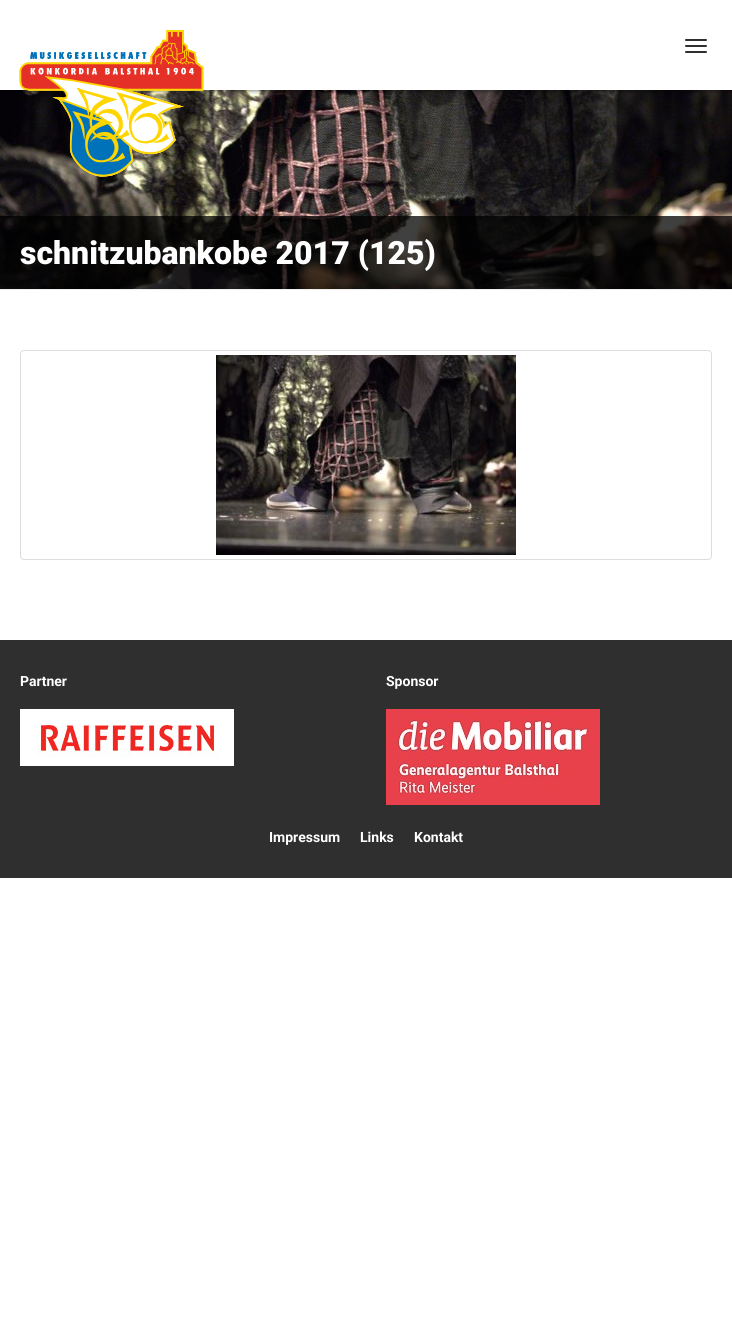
import math
import cairo



def rounded_rect(context, x, y, w, h, r):
    context.new_sub_path()
    for i, (u, v) in enumerate([(x + w - r, y + h - r), (x + r, y + h - r), (x + r, y + r), (x + w - r, y + r)]):
        context.arc(u, v, r, i * math.pi / 2, (i + 1) * math.pi / 2)
    context.close_path()


def draw_shadow(context, x, y, w, h, r, blur, alpha):
    context.push_group_with_content(cairo.Content.ALPHA)
    context.set_operator(cairo.Operator.SOURCE)
    for i in range(15, -16, -2):
        e = blur * i / 6
        if min(w, h) + 2 * e > 0:
            context.set_source_rgba(0, 0, 0, alpha * math.erfc((i - 1) / 8.5) / 2)
            rounded_rect(context, x - e, y - e, w + 2 * e, h + 2 * e, max(0, min(r + e + blur * .6, min(w, h) / 2 + e)))
            context.fill()
    context.mask(context.pop_group())


def draw_image(context, path, x, y, w, h):
    context.save()
    context.set_source_surface(cairo.ImageSurface.create_from_png(path), x, y)
    context.rectangle(x, y, w, h)
    context.fill()
    context.restore()


def draw(context):
    context.set_source_rgb(1, 1, 1)
    context.paint()
    draw_image(context, "images/1.png", 0, 90, 732, 199)
    context.save()
    context.rectangle(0, 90, 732, 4)
    context.clip()
    context.set_source_rgb(0, 0, 0)
    draw_shadow(context, -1, -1, 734, 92, 0, 2, 0.5)
    context.restore()
    draw_image(context, "images/2.png", 19, 30, 185, 147)
    context.set_source_rgb(47 / 255, 47 / 255, 47 / 255)
    rounded_rect(context, 685, 39, 22, 2, 1)
    context.fill()
    rounded_rect(context, 685, 45, 22, 2, 1)
    context.fill()
    rounded_rect(context, 685, 51, 22, 2, 1)
    context.fill()
    context.set_source_rgb(238 / 255, 238 / 255, 238 / 255)
    context.rectangle(0, 289, 732, 1)
    context.fill()
    context.set_source_rgba(0, 0, 0, 0.75)
    context.rectangle(0, 216, 732, 73)
    context.fill()
    rounded_rect(context, 20.5, 350.5, 691, 209, 3.5)
    context.set_source_rgb(221 / 255, 221 / 255, 221 / 255)
    context.set_line_width(1)
    context.stroke()
    draw_image(context, "images/3.png", 216, 355, 300, 200)
    context.set_source_rgb(47 / 255, 47 / 255, 47 / 255)
    context.rectangle(0, 640, 732, 238)
    context.fill()
    draw_image(context, "images/4.png", 20, 709, 214, 57)
    draw_image(context, "images/5.png", 386, 709, 214, 96)
    context.select_font_face("Roboto Black")
    context.set_font_size(32)
    context.set_source_rgb(1, 1, 1)
    context.move_to(20, 264)
    context.show_text("schnitzubankobe 2017 (125)")
    context.select_font_face("Roboto", cairo.FontSlant.NORMAL, cairo.FontWeight.BOLD)
    context.set_font_size(14)
    context.move_to(20, 686)
    context.show_text("Partner")
    context.move_to(386, 686)
    context.show_text("Sponsor")
    context.move_to(269, 842)
    context.show_text("Impressum")
    context.move_to(360, 842)
    context.show_text("Links")
    context.move_to(414, 842)
    context.show_text("Kontakt")


surface = cairo.ImageSurface(cairo.Format.RGB24, 732, 1340)
context = cairo.Context(surface)
options = cairo.FontOptions()
options.set_hint_metrics(cairo.HintMetrics.OFF)
options.set_hint_style(cairo.HintStyle.NONE)
context.set_font_options(options)
context.set_miter_limit(4)
draw(context)
surface.write_to_png("out.png")
